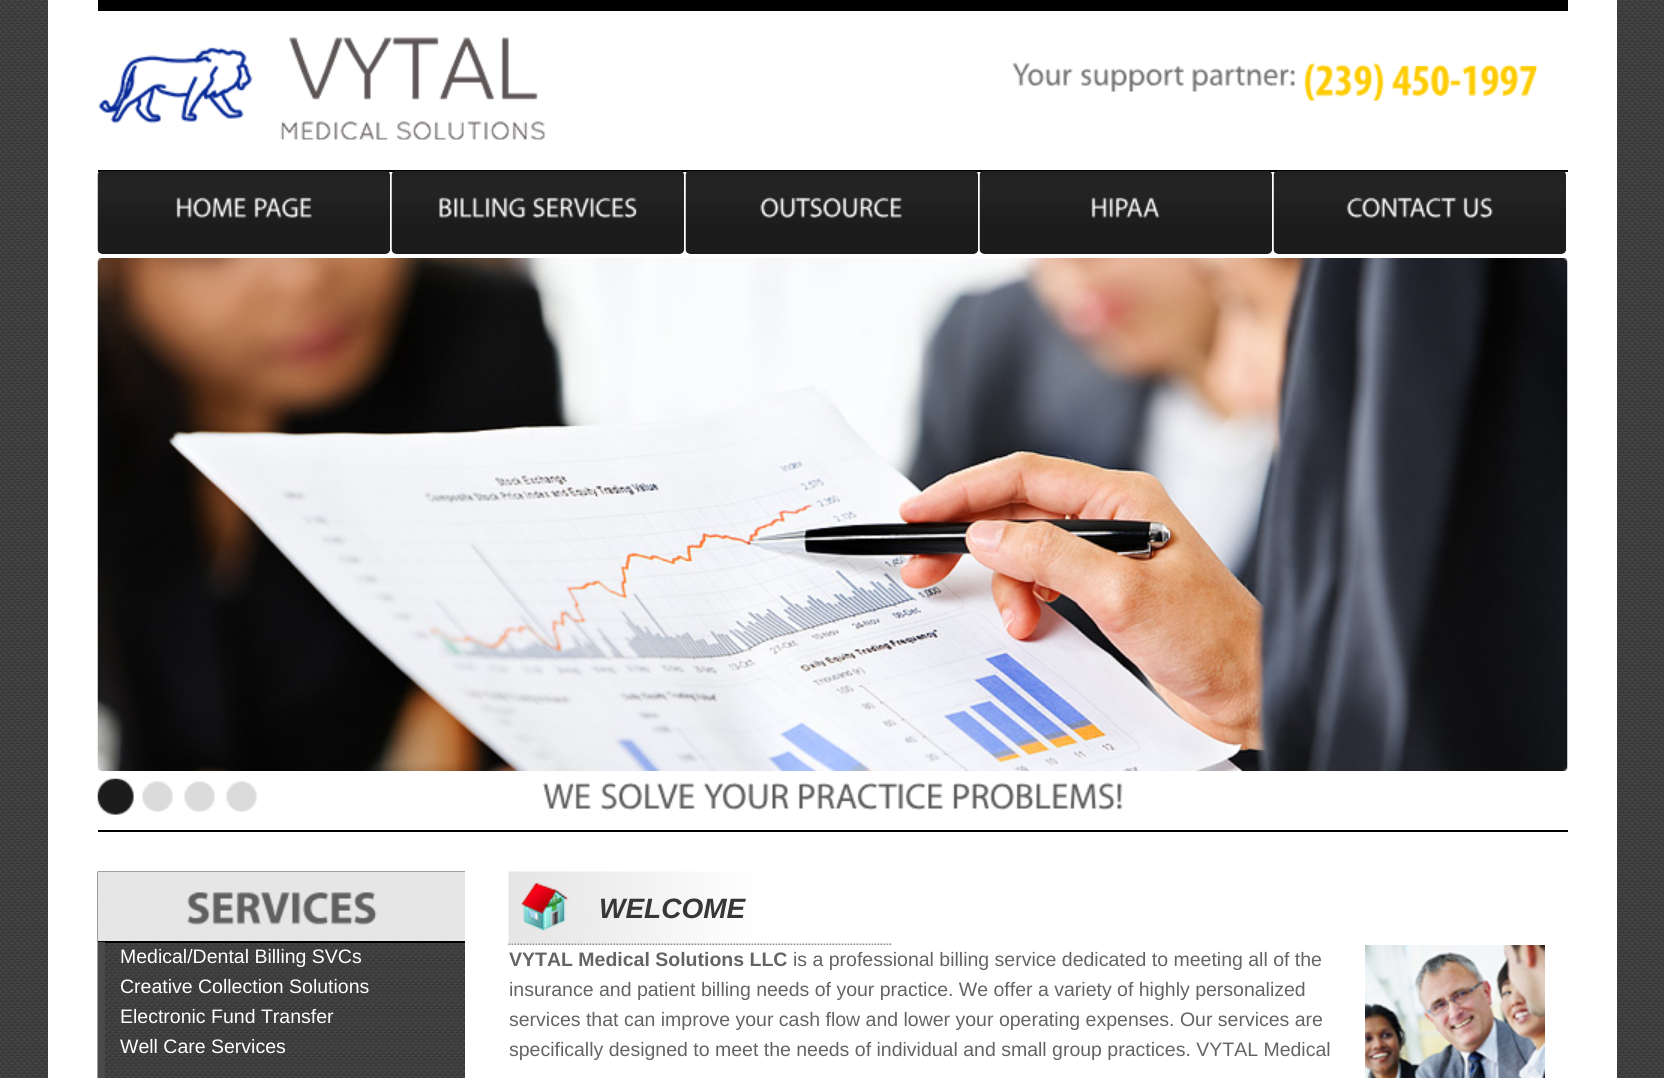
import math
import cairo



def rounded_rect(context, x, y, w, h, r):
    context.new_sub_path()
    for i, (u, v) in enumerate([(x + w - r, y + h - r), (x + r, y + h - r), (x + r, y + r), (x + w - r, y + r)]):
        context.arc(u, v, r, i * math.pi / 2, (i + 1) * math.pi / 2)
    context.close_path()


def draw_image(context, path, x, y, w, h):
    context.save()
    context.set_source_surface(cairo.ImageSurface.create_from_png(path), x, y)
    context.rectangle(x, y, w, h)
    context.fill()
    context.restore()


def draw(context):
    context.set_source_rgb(1, 1, 1)
    context.paint()
    draw_image(context, "images/1.png", 0, 0, 1664, 1078)
    context.set_source_rgb(1, 1, 1)
    context.rectangle(48, 0, 1569, 1078)
    context.fill()
    context.set_source_rgb(0, 0, 0)
    context.rectangle(98, 0, 1470, 11)
    context.fill()
    draw_image(context, "images/2.png", 98, 37, 447, 103)
    draw_image(context, "images/3.png", 1012, 62, 61, 24)
    draw_image(context, "images/4.png", 1081, 65, 103, 27)
    draw_image(context, "images/5.png", 1192, 65, 103, 27)
    draw_image(context, "images/6.png", 1304, 62, 80, 39)
    draw_image(context, "images/7.png", 1391, 64, 147, 33)
    context.rectangle(98, 170, 1470, 2)
    context.fill()
    context.set_source_rgb(28 / 255, 28 / 255, 28 / 255)
    rounded_rect(context, 98, 171, 292, 83, 5)
    context.fill()
    draw_image(context, "images/8.png", 97, 171, 293, 83)
    draw_image(context, "images/9.png", 176, 197, 71, 21)
    draw_image(context, "images/10.png", 254, 197, 59, 21)
    rounded_rect(context, 392, 171, 292, 83, 5)
    context.fill()
    draw_image(context, "images/11.png", 391, 171, 293, 83)
    draw_image(context, "images/12.png", 439, 197, 87, 21)
    draw_image(context, "images/13.png", 532, 197, 105, 21)
    rounded_rect(context, 686, 171, 292, 83, 5)
    context.fill()
    draw_image(context, "images/11.png", 685, 171, 293, 83)
    draw_image(context, "images/14.png", 760, 197, 142, 21)
    rounded_rect(context, 980, 171, 292, 83, 5)
    context.fill()
    draw_image(context, "images/15.png", 979, 171, 293, 83)
    draw_image(context, "images/16.png", 1091, 197, 69, 21)
    rounded_rect(context, 1274, 171, 292, 83, 5)
    context.fill()
    draw_image(context, "images/11.png", 1273, 171, 293, 83)
    draw_image(context, "images/17.png", 1346, 197, 111, 21)
    draw_image(context, "images/18.png", 1463, 197, 30, 21)
    draw_image(context, "images/19.png", 97, 258, 1471, 513)
    context.set_source_rgb(0, 0, 0)
    context.rectangle(98, 830, 1470, 2)
    context.fill()
    draw_image(context, "images/20.png", 542, 782, 50, 27)
    draw_image(context, "images/21.png", 601, 782, 94, 29)
    draw_image(context, "images/22.png", 703, 782, 87, 29)
    draw_image(context, "images/23.png", 798, 782, 146, 29)
    draw_image(context, "images/24.png", 952, 782, 171, 29)
    draw_image(context, "images/25.png", 97, 778, 37, 37)
    draw_image(context, "images/26.png", 142, 781, 31, 31)
    draw_image(context, "images/26.png", 184, 781, 31, 31)
    draw_image(context, "images/26.png", 226, 781, 31, 31)
    draw_image(context, "images/27.png", 97, 871, 368, 207)
    context.set_source_rgb(230 / 255, 230 / 255, 230 / 255)
    context.rectangle(98, 872, 367, 69)
    context.fill()
    context.set_source_rgb(0, 0, 0)
    context.rectangle(98, 941, 367, 2)
    context.fill()
    draw_image(context, "images/28.png", 187, 892, 190, 33)
    context.set_source_rgb(73 / 255, 73 / 255, 73 / 255)
    context.rectangle(98, 942, 7, 136)
    context.fill()
    draw_image(context, "images/29.png", 508, 871, 384, 74)
    draw_image(context, "images/30.png", 1365, 945, 180, 133)
    context.select_font_face("Liberation Sans")
    context.set_font_size(19.5)
    context.set_source_rgb(1, 1, 1)
    context.move_to(120, 963)
    context.show_text("Medical/Dental Billing SVCs")
    context.move_to(120, 993)
    context.show_text("Creative Collection Solutions")
    context.move_to(120, 1023)
    context.show_text("Electronic Fund Transfer")
    context.move_to(120, 1053)
    context.show_text("Well Care Services")
    context.select_font_face("Liberation Sans", cairo.FontSlant.ITALIC, cairo.FontWeight.BOLD)
    context.set_font_size(28)
    context.set_source_rgb(55 / 255, 55 / 255, 55 / 255)
    context.move_to(599, 918)
    context.show_text("WELCOME")
    context.select_font_face("Liberation Sans", cairo.FontSlant.NORMAL, cairo.FontWeight.BOLD)
    context.set_font_size(19.5)
    context.set_source_rgb(100 / 255, 100 / 255, 100 / 255)
    context.move_to(509, 966)
    context.show_text("VYTAL Medical Solutions LLC")
    context.select_font_face("Liberation Sans")
    context.move_to(793, 966)
    context.show_text("is a professional billing service dedicated to meeting all of the")
    context.move_to(509, 996)
    context.show_text("insurance and patient billing needs of your practice. We offer a variety of highly personalized")
    context.move_to(509, 1026)
    context.show_text("services that can improve your cash flow and lower your operating expenses. Our services are")
    context.move_to(509, 1056)
    context.show_text("specifically designed to meet the needs of individual and small group practices. VYTAL Medical")


surface = cairo.ImageSurface(cairo.Format.RGB24, 1664, 1078)
context = cairo.Context(surface)
options = cairo.FontOptions()
options.set_hint_metrics(cairo.HintMetrics.OFF)
options.set_hint_style(cairo.HintStyle.NONE)
context.set_font_options(options)
context.set_miter_limit(4)
draw(context)
surface.write_to_png("out.png")
